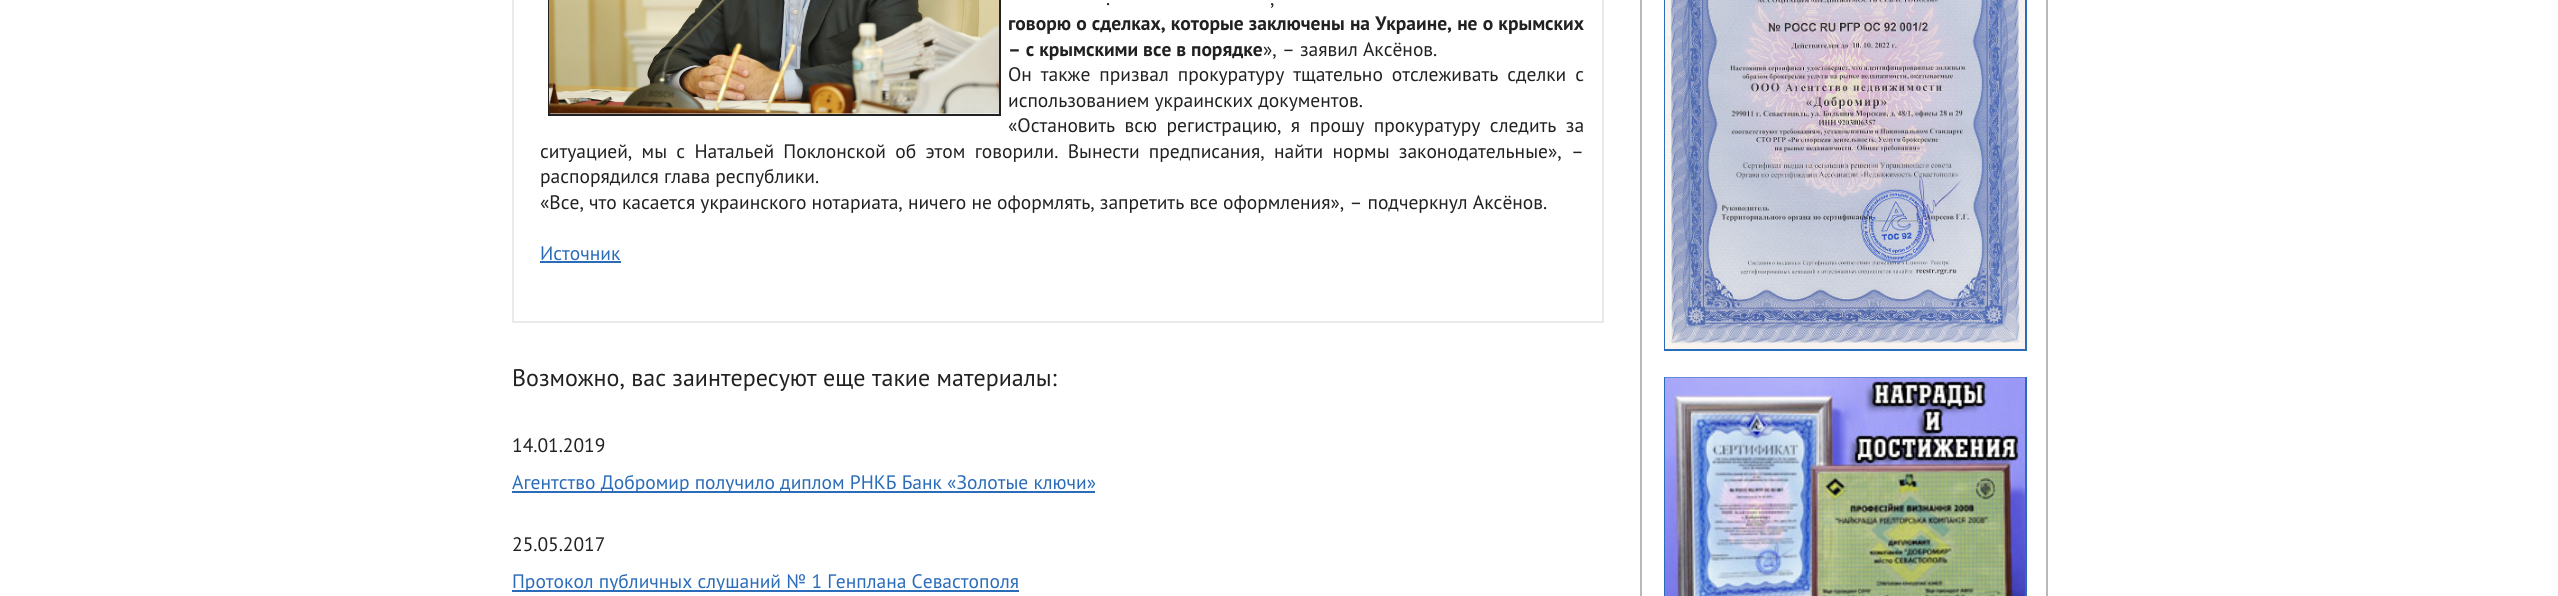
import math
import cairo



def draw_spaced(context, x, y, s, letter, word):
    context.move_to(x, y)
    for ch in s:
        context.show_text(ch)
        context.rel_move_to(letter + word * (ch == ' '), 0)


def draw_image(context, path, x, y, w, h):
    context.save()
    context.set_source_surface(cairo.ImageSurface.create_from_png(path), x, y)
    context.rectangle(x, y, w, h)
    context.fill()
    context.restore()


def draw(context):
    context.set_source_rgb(1, 1, 1)
    context.paint()
    context.rectangle(513, -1, 1090, 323)
    context.set_source_rgb(234 / 255, 234 / 255, 234 / 255)
    context.stroke()
    context.rectangle(549, -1, 451, 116)
    context.set_source_rgb(33 / 255, 33 / 255, 33 / 255)
    context.stroke()
    draw_image(context, "images/1.png", 549, 0, 450, 114)
    context.set_source_rgb(42 / 255, 108 / 255, 185 / 255)
    context.rectangle(540, 261, 81, 2)
    context.fill()
    context.rectangle(512, 491, 583, 2)
    context.fill()
    context.rectangle(512, 590, 507, 2)
    context.fill()
    context.rectangle(1641, -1, 406, 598)
    context.set_source_rgb(185 / 255, 185 / 255, 185 / 255)
    context.stroke()
    context.rectangle(1665, -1, 361, 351)
    context.set_source_rgb(42 / 255, 108 / 255, 185 / 255)
    context.stroke()
    draw_image(context, "images/2.png", 1665, 0, 360, 349)
    context.rectangle(1665, 378, 361, 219)
    context.stroke()
    draw_image(context, "images/3.png", 1665, 377, 360, 219)
    context.select_font_face("PT Sans")
    context.set_font_size(19.5)
    context.set_source_rgb(33 / 255, 33 / 255, 33 / 255)
    draw_spaced(context, 1106, 5, ".", 0, 4)
    draw_spaced(context, 1270, 5, ",", 0, 4)
    context.select_font_face("PT Sans", cairo.FontSlant.NORMAL, cairo.FontWeight.BOLD)
    draw_spaced(context, 1008, 30, "говорю о сделках, которые заключены на Украине, не о крымских", 0, 0.25)
    context.move_to(1008, 56)
    context.show_text("– с крымскими все в порядке")
    context.select_font_face("PT Sans")
    context.move_to(1263, 56)
    context.show_text("», – заявил Аксёнов.")
    draw_spaced(context, 1008, 81, "Он также призвал прокуратуру тщательно отслеживать сделки с", 0, 3.75)
    context.move_to(1008, 107)
    context.show_text("использованием украинских документов.")
    draw_spaced(context, 1008, 132, "«Остановить всю регистрацию, я прошу прокуратуру следить за", 0, 4.25)
    draw_spaced(context, 540, 158, "ситуацией, мы с Натальей Поклонской об этом говорили. Вынести предписания, найти нормы законодательные», –", 0, 4.1)
    context.move_to(540, 183)
    context.show_text("распорядился глава республики.")
    context.move_to(540, 209)
    context.show_text("«Все, что касается украинского нотариата, ничего не оформлять, запретить все оформления», – подчеркнул Аксёнов.")
    context.set_source_rgb(42 / 255, 108 / 255, 185 / 255)
    context.move_to(540, 260)
    context.show_text("Источник")
    context.set_font_size(24)
    context.set_source_rgb(33 / 255, 33 / 255, 33 / 255)
    context.move_to(512, 386)
    context.show_text("Возможно, вас заинтересуют еще такие материалы:")
    context.set_font_size(19.5)
    context.move_to(512, 452)
    context.show_text("14.01.2019")
    context.set_source_rgb(42 / 255, 108 / 255, 185 / 255)
    context.move_to(512, 489)
    context.show_text("Агентство Добромир получило диплом РНКБ Банк «Золотые ключи»")
    context.set_source_rgb(33 / 255, 33 / 255, 33 / 255)
    context.move_to(512, 551)
    context.show_text("25.05.2017")
    context.set_source_rgb(42 / 255, 108 / 255, 185 / 255)
    context.move_to(512, 588)
    context.show_text("Протокол публичных слушаний № 1 Генплана Севастополя")


surface = cairo.ImageSurface(cairo.Format.RGB24, 2558, 596)
context = cairo.Context(surface)
options = cairo.FontOptions()
options.set_hint_metrics(cairo.HintMetrics.OFF)
options.set_hint_style(cairo.HintStyle.NONE)
context.set_font_options(options)
context.set_miter_limit(4)
draw(context)
surface.write_to_png("out.png")
